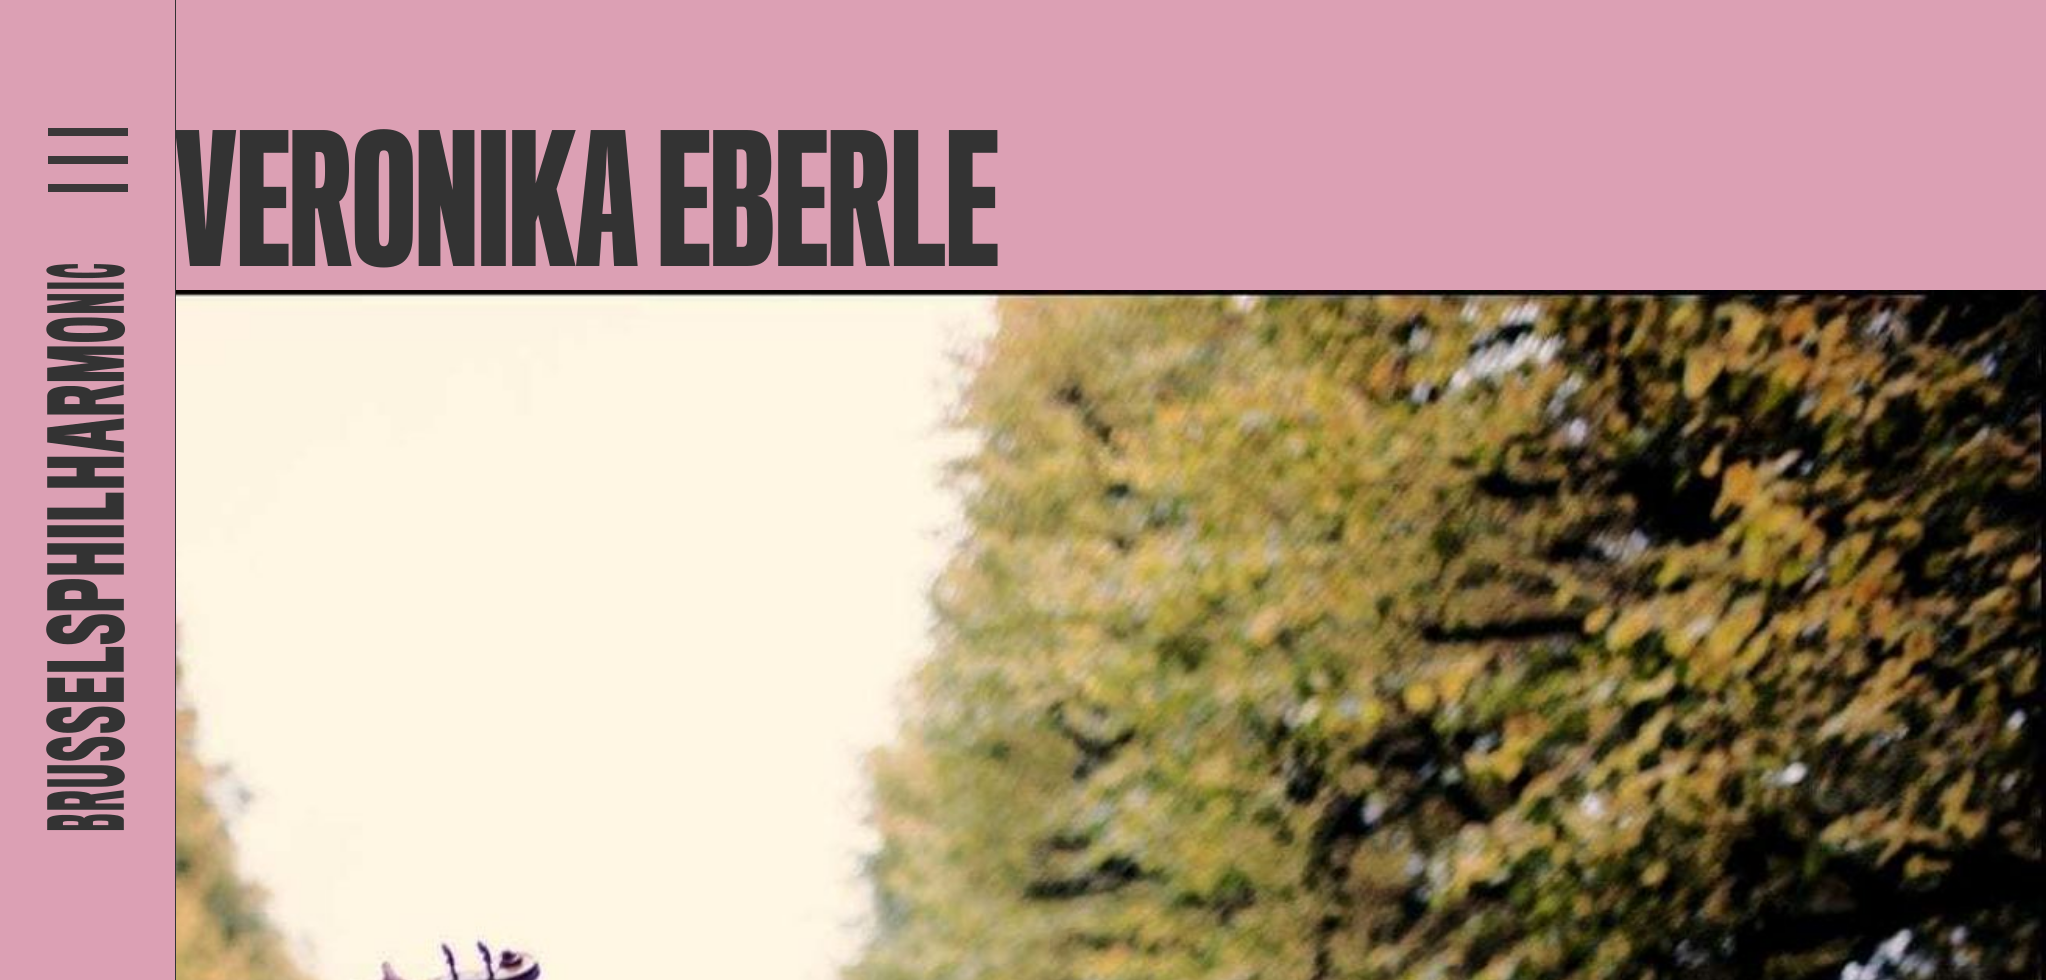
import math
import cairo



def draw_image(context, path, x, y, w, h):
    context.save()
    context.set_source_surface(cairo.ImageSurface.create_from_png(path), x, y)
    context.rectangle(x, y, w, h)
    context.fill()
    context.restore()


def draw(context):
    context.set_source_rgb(220 / 255, 160 / 255, 180 / 255)
    context.paint()
    context.set_source_rgb(59 / 255, 56 / 255, 57 / 255)
    context.rectangle(48, 128, 80, 8)
    context.fill()
    context.rectangle(48, 156, 80, 8)
    context.fill()
    context.rectangle(48, 184, 80, 8)
    context.fill()
    draw_image(context, "images/1.png", 46, 264, 80, 567)
    context.set_source_rgb(51 / 255, 51 / 255, 51 / 255)
    context.rectangle(175, 0, 1, 980)
    context.fill()
    draw_image(context, "images/2.png", 176, 290, 1870, 690)
    context.select_font_face("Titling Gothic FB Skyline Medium")
    context.set_font_size(170)
    context.move_to(175, 266)
    context.show_text("VERONIKA EBERLE")


surface = cairo.ImageSurface(cairo.Format.RGB24, 2046, 980)
context = cairo.Context(surface)
options = cairo.FontOptions()
options.set_hint_metrics(cairo.HintMetrics.OFF)
options.set_hint_style(cairo.HintStyle.NONE)
context.set_font_options(options)
context.set_miter_limit(4)
draw(context)
surface.write_to_png("out.png")
